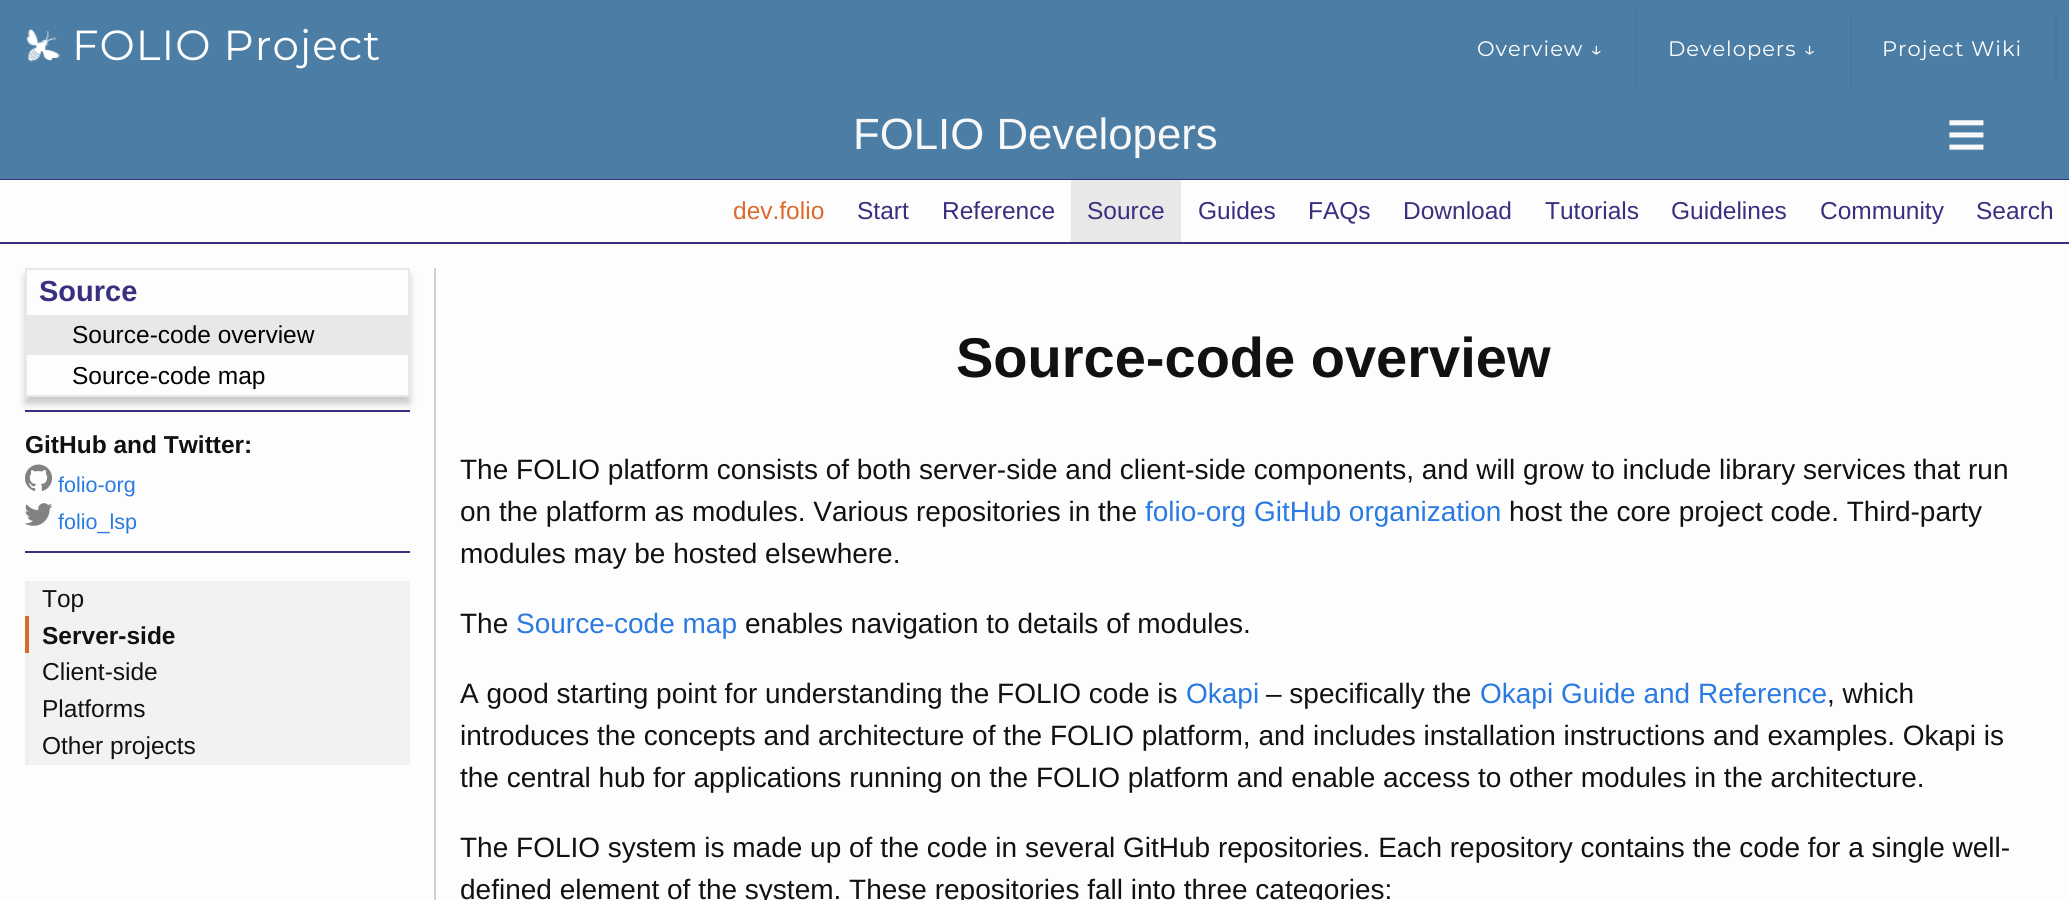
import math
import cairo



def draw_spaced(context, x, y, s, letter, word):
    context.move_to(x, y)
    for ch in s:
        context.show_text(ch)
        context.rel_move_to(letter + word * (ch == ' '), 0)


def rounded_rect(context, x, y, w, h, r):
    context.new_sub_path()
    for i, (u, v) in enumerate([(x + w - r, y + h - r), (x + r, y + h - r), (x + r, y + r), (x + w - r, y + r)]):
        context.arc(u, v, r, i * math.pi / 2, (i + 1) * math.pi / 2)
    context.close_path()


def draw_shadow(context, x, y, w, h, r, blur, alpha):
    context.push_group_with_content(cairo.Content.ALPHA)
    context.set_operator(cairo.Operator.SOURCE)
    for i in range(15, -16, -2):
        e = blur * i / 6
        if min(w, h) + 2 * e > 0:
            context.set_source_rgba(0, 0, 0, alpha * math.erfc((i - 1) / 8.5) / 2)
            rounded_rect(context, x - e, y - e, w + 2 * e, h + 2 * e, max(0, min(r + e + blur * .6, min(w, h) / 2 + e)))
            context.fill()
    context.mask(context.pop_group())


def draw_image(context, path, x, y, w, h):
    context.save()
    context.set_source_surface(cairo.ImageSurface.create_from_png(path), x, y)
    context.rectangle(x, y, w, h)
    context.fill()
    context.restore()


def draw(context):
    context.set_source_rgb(253 / 255, 253 / 255, 253 / 255)
    context.paint()
    context.set_source_rgb(76 / 255, 126 / 255, 165 / 255)
    context.rectangle(0, 0, 2069, 179)
    context.fill()
    draw_image(context, "images/1.png", 26, 29, 34, 33)
    context.set_source_rgb(72 / 255, 120 / 255, 157 / 255)
    context.rectangle(1635, 12, 2, 74)
    context.fill()
    context.rectangle(1850, 12, 2, 74)
    context.fill()
    context.rectangle(2055, 12, 2, 74)
    context.fill()
    context.set_source_rgb(56 / 255, 48 / 255, 127 / 255)
    context.rectangle(0, 179, 2069, 1)
    context.fill()
    context.set_source_rgb(232 / 255, 232 / 255, 232 / 255)
    context.rectangle(1071, 180, 110, 62)
    context.fill()
    context.set_source_rgb(56 / 255, 48 / 255, 127 / 255)
    context.rectangle(0, 242, 2069, 2)
    context.fill()
    context.save()
    context.set_fill_rule(cairo.FillRule.EVEN_ODD)
    context.new_path()
    context.move_to(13, 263)
    context.line_to(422, 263)
    context.line_to(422, 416)
    context.line_to(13, 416)
    context.close_path()
    context.move_to(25, 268)
    context.line_to(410, 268)
    context.line_to(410, 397)
    context.line_to(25, 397)
    context.close_path()
    context.clip()
    context.set_source_rgb(0, 0, 0)
    draw_shadow(context, 25, 275, 385, 129, 0, 3.5, 0.2)
    context.restore()
    context.rectangle(26, 269, 383, 127)
    context.set_source_rgb(232 / 255, 232 / 255, 232 / 255)
    context.stroke()
    context.rectangle(27, 315, 381, 40)
    context.fill()
    context.set_source_rgb(56 / 255, 48 / 255, 127 / 255)
    context.rectangle(25, 410, 385, 2)
    context.fill()
    draw_image(context, "images/2.png", 25, 464, 28, 27)
    draw_image(context, "images/3.png", 25, 503, 28, 23)
    context.rectangle(25, 551, 385, 2)
    context.fill()
    context.set_source_rgb(242 / 255, 242 / 255, 242 / 255)
    context.rectangle(29, 581, 381, 184)
    context.fill()
    context.set_source_rgb(238 / 255, 238 / 255, 238 / 255)
    context.rectangle(25, 581, 4, 35)
    context.fill()
    context.set_source_rgb(218 / 255, 106 / 255, 45 / 255)
    context.rectangle(25, 616, 4, 37)
    context.fill()
    context.set_source_rgb(238 / 255, 238 / 255, 238 / 255)
    context.rectangle(25, 653, 4, 112)
    context.fill()
    context.set_source_rgb(207 / 255, 207 / 255, 207 / 255)
    context.rectangle(434, 268, 2, 632)
    context.fill()
    context.select_font_face("Montserrat")
    context.set_font_size(42)
    context.set_source_rgb(1, 1, 1)
    draw_spaced(context, 72, 60, "FOLIO Project", 1, 0)
    context.set_font_size(21)
    draw_spaced(context, 1477, 56, "Overview ↓", 1, 0)
    draw_spaced(context, 1668, 56, "Developers ↓", 1, 0)
    draw_spaced(context, 1882, 56, "Project Wiki", 1, 0)
    context.select_font_face("Liberation Sans")
    context.set_font_size(43.75)
    context.set_source_rgb(248 / 255, 248 / 255, 248 / 255)
    context.move_to(853, 149)
    context.show_text("FOLIO Developers")
    context.set_font_size(70)
    context.move_to(1946, 158)
    context.show_text("≡")
    context.set_font_size(24.5)
    context.set_source_rgb(218 / 255, 106 / 255, 45 / 255)
    context.move_to(733, 219)
    context.show_text("dev.folio")
    context.set_source_rgb(56 / 255, 48 / 255, 127 / 255)
    context.move_to(857, 219)
    context.show_text("Start")
    context.move_to(942, 219)
    context.show_text("Reference")
    context.move_to(1087, 219)
    context.show_text("Source")
    context.move_to(1198, 219)
    context.show_text("Guides")
    context.move_to(1308, 219)
    context.show_text("FAQs")
    context.move_to(1403, 219)
    context.show_text("Download")
    context.move_to(1545, 219)
    context.show_text("Tutorials")
    context.move_to(1671, 219)
    context.show_text("Guidelines")
    context.move_to(1820, 219)
    context.show_text("Community")
    context.move_to(1976, 219)
    context.show_text("Search")
    context.select_font_face("Liberation Sans", cairo.FontSlant.NORMAL, cairo.FontWeight.BOLD)
    context.set_font_size(29)
    context.move_to(39, 301)
    context.show_text("Source")
    context.select_font_face("Liberation Sans")
    context.set_font_size(24.5)
    context.set_source_rgb(0, 0, 0)
    context.move_to(72, 343)
    context.show_text("Source-code overview")
    context.move_to(72, 384)
    context.show_text("Source-code map")
    context.select_font_face("Liberation Sans", cairo.FontSlant.NORMAL, cairo.FontWeight.BOLD)
    context.set_source_rgb(17 / 255, 17 / 255, 17 / 255)
    context.move_to(25, 453)
    context.show_text("GitHub and Twitter:")
    context.select_font_face("Liberation Sans")
    context.set_font_size(21.5)
    context.set_source_rgb(42 / 255, 122 / 255, 226 / 255)
    context.move_to(58, 492)
    context.show_text("folio-org")
    context.move_to(58, 529)
    context.show_text("folio_lsp")
    context.set_font_size(24.5)
    context.set_source_rgb(17 / 255, 17 / 255, 17 / 255)
    context.move_to(42, 607)
    context.show_text("Top")
    context.select_font_face("Liberation Sans", cairo.FontSlant.NORMAL, cairo.FontWeight.BOLD)
    context.move_to(42, 644)
    context.show_text("Server-side")
    context.select_font_face("Liberation Sans")
    context.move_to(42, 680)
    context.show_text("Client-side")
    context.move_to(42, 717)
    context.show_text("Platforms")
    context.move_to(42, 754)
    context.show_text("Other projects")
    context.select_font_face("Liberation Sans", cairo.FontSlant.NORMAL, cairo.FontWeight.BOLD)
    context.set_font_size(56)
    context.move_to(956, 377)
    context.show_text("Source-code overview")
    context.select_font_face("Liberation Sans")
    context.set_font_size(28)
    context.move_to(460, 479)
    context.show_text("The FOLIO platform consists of both server-side and client-side components, and will grow to include library services that run")
    context.move_to(460, 521)
    context.show_text("on the platform as modules. Various repositories in the")
    context.set_source_rgb(42 / 255, 122 / 255, 226 / 255)
    context.move_to(1145, 521)
    context.show_text("folio-org GitHub organization")
    context.set_source_rgb(17 / 255, 17 / 255, 17 / 255)
    context.move_to(1509, 521)
    context.show_text("host the core project code. Third-party")
    context.move_to(460, 563)
    context.show_text("modules may be hosted elsewhere.")
    context.move_to(460, 633)
    context.show_text("The")
    context.set_source_rgb(42 / 255, 122 / 255, 226 / 255)
    context.move_to(516, 633)
    context.show_text("Source-code map")
    context.set_source_rgb(17 / 255, 17 / 255, 17 / 255)
    context.move_to(745, 633)
    context.show_text("enables navigation to details of modules.")
    context.move_to(460, 703)
    context.show_text("A good starting point for understanding the FOLIO code is")
    context.set_source_rgb(42 / 255, 122 / 255, 226 / 255)
    context.move_to(1186, 703)
    context.show_text("Okapi")
    context.set_source_rgb(17 / 255, 17 / 255, 17 / 255)
    context.move_to(1266, 703)
    context.show_text("– specifically the")
    context.set_source_rgb(42 / 255, 122 / 255, 226 / 255)
    context.move_to(1480, 703)
    context.show_text("Okapi Guide and Reference")
    context.set_source_rgb(17 / 255, 17 / 255, 17 / 255)
    context.move_to(1827, 703)
    context.show_text(", which")
    context.move_to(460, 745)
    context.show_text("introduces the concepts and architecture of the FOLIO platform, and includes installation instructions and examples. Okapi is")
    context.move_to(460, 787)
    context.show_text("the central hub for applications running on the FOLIO platform and enable access to other modules in the architecture.")
    context.move_to(460, 857)
    context.show_text("The FOLIO system is made up of the code in several GitHub repositories. Each repository contains the code for a single well-")
    context.move_to(460, 899)
    context.show_text("defined element of the system. These repositories fall into three categories:")


surface = cairo.ImageSurface(cairo.Format.RGB24, 2069, 900)
context = cairo.Context(surface)
options = cairo.FontOptions()
options.set_hint_metrics(cairo.HintMetrics.OFF)
options.set_hint_style(cairo.HintStyle.NONE)
context.set_font_options(options)
context.set_miter_limit(4)
draw(context)
surface.write_to_png("out.png")
